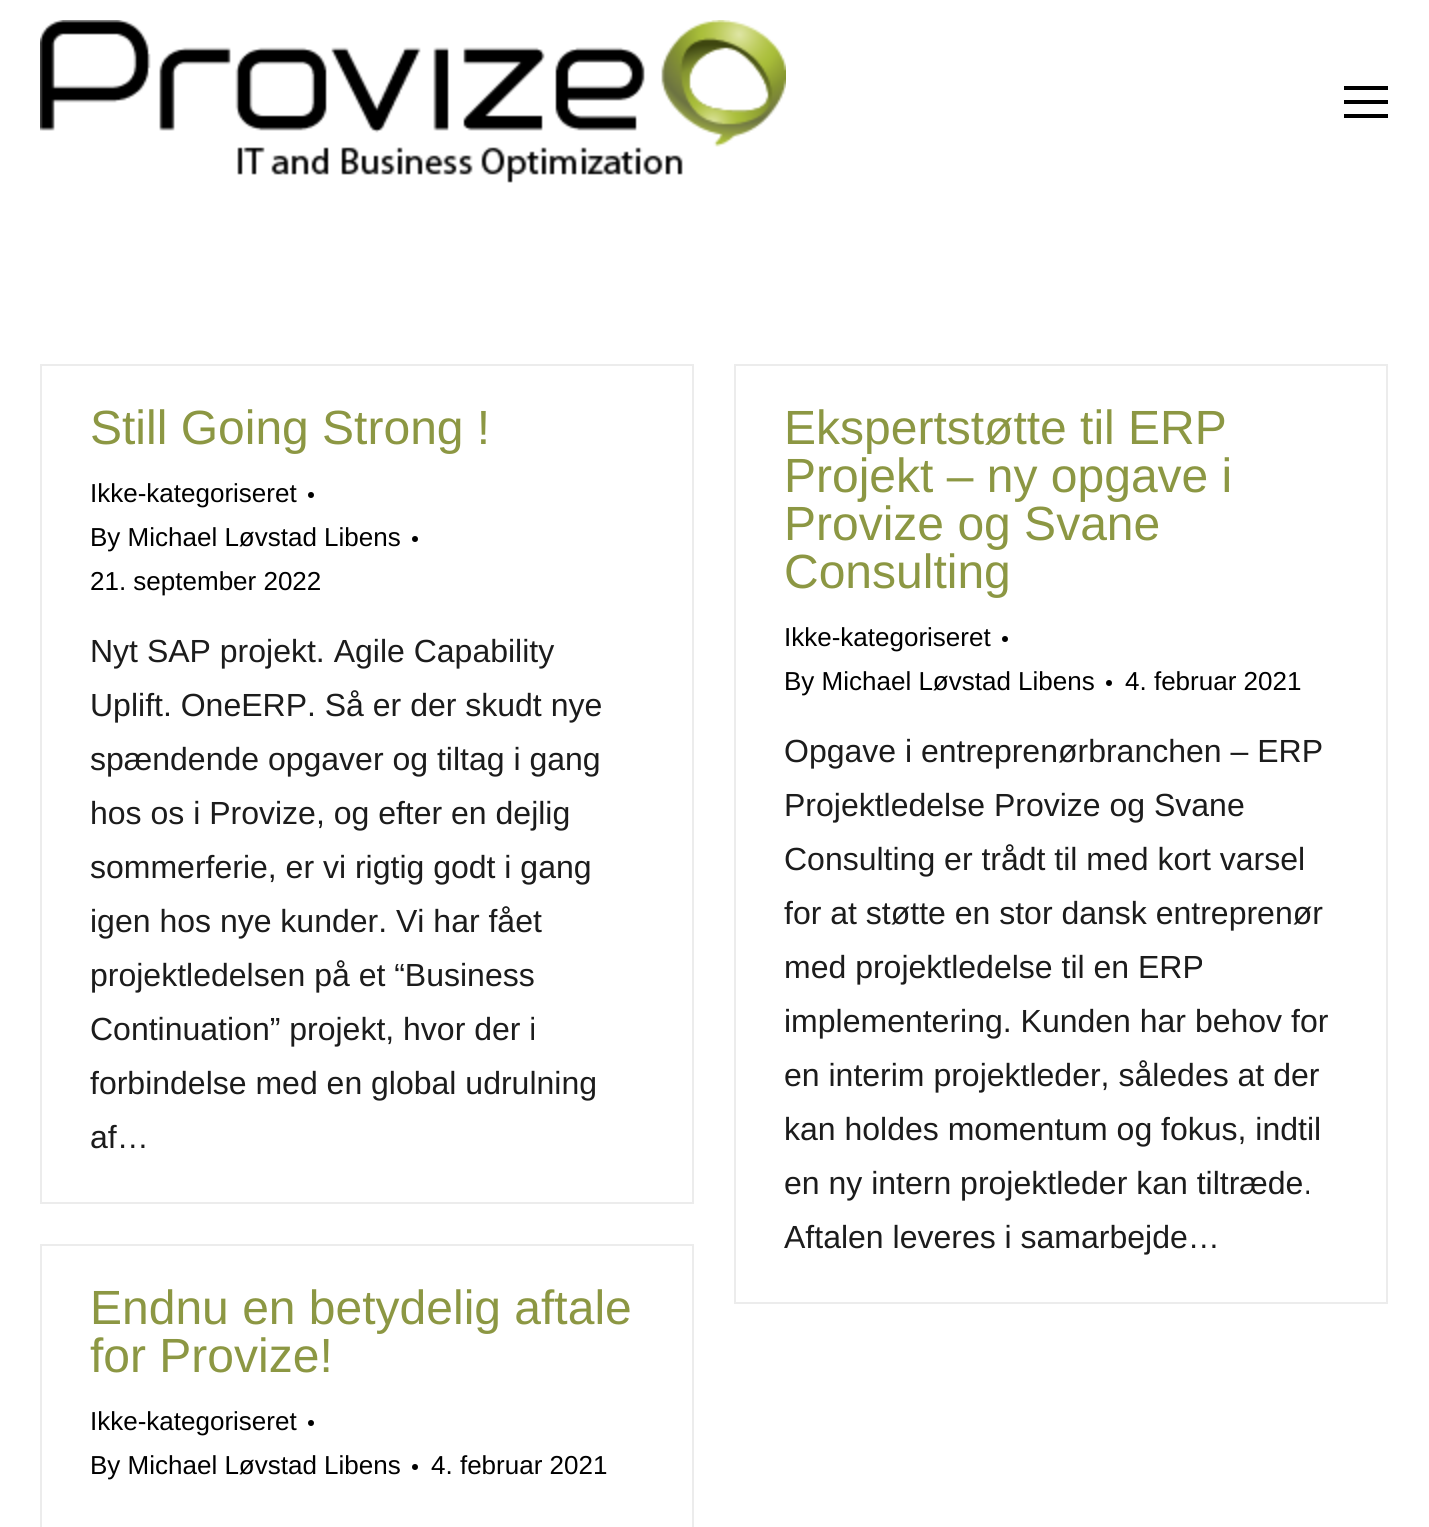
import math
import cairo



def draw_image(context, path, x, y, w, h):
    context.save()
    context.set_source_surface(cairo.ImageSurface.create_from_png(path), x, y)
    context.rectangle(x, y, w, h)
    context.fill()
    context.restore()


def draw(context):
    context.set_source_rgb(1, 1, 1)
    context.paint()
    draw_image(context, "images/1.png", 40, 20, 746, 163)
    context.set_source_rgb(0, 0, 0)
    context.rectangle(1344, 86, 44, 4)
    context.fill()
    context.rectangle(1344, 100, 44, 4)
    context.fill()
    context.rectangle(1344, 114, 44, 4)
    context.fill()
    context.rectangle(41, 365, 652, 838)
    context.set_source_rgb(236 / 255, 236 / 255, 236 / 255)
    context.stroke()
    context.set_source_rgb(0, 0, 0)
    context.arc(311, 495, 3, 0, 2 * math.pi)
    context.fill()
    context.arc(415, 539, 3, 0, 2 * math.pi)
    context.fill()
    context.rectangle(735, 365, 652, 938)
    context.set_source_rgb(236 / 255, 236 / 255, 236 / 255)
    context.stroke()
    context.set_source_rgb(0, 0, 0)
    context.arc(1005, 639, 3, 0, 2 * math.pi)
    context.fill()
    context.arc(1109, 683, 3, 0, 2 * math.pi)
    context.fill()
    context.rectangle(41, 1245, 652, 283)
    context.set_source_rgb(236 / 255, 236 / 255, 236 / 255)
    context.stroke()
    context.set_source_rgb(0, 0, 0)
    context.arc(311, 1423, 3, 0, 2 * math.pi)
    context.fill()
    context.arc(415, 1467, 3, 0, 2 * math.pi)
    context.fill()
    context.select_font_face("Liberation Sans")
    context.set_font_size(48)
    context.set_source_rgb(140 / 255, 151 / 255, 67 / 255)
    context.move_to(90, 444)
    context.show_text("Still Going Strong !")
    context.set_font_size(26)
    context.set_source_rgb(0, 0, 0)
    context.move_to(90, 502)
    context.show_text("Ikke-kategoriseret")
    context.move_to(90, 546)
    context.show_text("By Michael Løvstad Libens")
    context.move_to(90, 590)
    context.show_text("21. september 2022")
    context.set_font_size(32)
    context.set_source_rgb(28 / 255, 28 / 255, 28 / 255)
    context.move_to(90, 662)
    context.show_text("Nyt SAP projekt. Agile Capability")
    context.move_to(90, 716)
    context.show_text("Uplift. OneERP. Så er der skudt nye")
    context.move_to(90, 770)
    context.show_text("spændende opgaver og tiltag i gang")
    context.move_to(90, 824)
    context.show_text("hos os i Provize, og efter en dejlig")
    context.move_to(90, 878)
    context.show_text("sommerferie, er vi rigtig godt i gang")
    context.move_to(90, 932)
    context.show_text("igen hos nye kunder. Vi har fået")
    context.move_to(90, 986)
    context.show_text("projektledelsen på et “Business")
    context.move_to(90, 1040)
    context.show_text("Continuation” projekt, hvor der i")
    context.move_to(90, 1094)
    context.show_text("forbindelse med en global udrulning")
    context.move_to(90, 1148)
    context.show_text("af…")
    context.set_font_size(48)
    context.set_source_rgb(140 / 255, 151 / 255, 67 / 255)
    context.move_to(784, 444)
    context.show_text("Ekspertstøtte til ERP")
    context.move_to(784, 492)
    context.show_text("Projekt – ny opgave i")
    context.move_to(784, 540)
    context.show_text("Provize og Svane")
    context.move_to(784, 588)
    context.show_text("Consulting")
    context.set_font_size(26)
    context.set_source_rgb(0, 0, 0)
    context.move_to(784, 646)
    context.show_text("Ikke-kategoriseret")
    context.move_to(784, 690)
    context.show_text("By Michael Løvstad Libens")
    context.move_to(1125, 690)
    context.show_text("4. februar 2021")
    context.set_font_size(32)
    context.set_source_rgb(28 / 255, 28 / 255, 28 / 255)
    context.move_to(784, 762)
    context.show_text("Opgave i entreprenørbranchen – ERP")
    context.move_to(784, 816)
    context.show_text("Projektledelse Provize og Svane")
    context.move_to(784, 870)
    context.show_text("Consulting er trådt til med kort varsel")
    context.move_to(784, 924)
    context.show_text("for at støtte en stor dansk entreprenør")
    context.move_to(784, 978)
    context.show_text("med projektledelse til en ERP")
    context.move_to(784, 1032)
    context.show_text("implementering. Kunden har behov for")
    context.move_to(784, 1086)
    context.show_text("en interim projektleder, således at der")
    context.move_to(784, 1140)
    context.show_text("kan holdes momentum og fokus, indtil")
    context.move_to(784, 1194)
    context.show_text("en ny intern projektleder kan tiltræde.")
    context.move_to(784, 1248)
    context.show_text("Aftalen leveres i samarbejde…")
    context.set_font_size(48)
    context.set_source_rgb(140 / 255, 151 / 255, 67 / 255)
    context.move_to(90, 1324)
    context.show_text("Endnu en betydelig aftale")
    context.move_to(90, 1372)
    context.show_text("for Provize!")
    context.set_font_size(26)
    context.set_source_rgb(0, 0, 0)
    context.move_to(90, 1430)
    context.show_text("Ikke-kategoriseret")
    context.move_to(90, 1474)
    context.show_text("By Michael Løvstad Libens")
    context.move_to(431, 1474)
    context.show_text("4. februar 2021")


surface = cairo.ImageSurface(cairo.Format.RGB24, 1429, 1527)
context = cairo.Context(surface)
options = cairo.FontOptions()
options.set_hint_metrics(cairo.HintMetrics.OFF)
options.set_hint_style(cairo.HintStyle.NONE)
context.set_font_options(options)
context.set_miter_limit(4)
draw(context)
surface.write_to_png("out.png")
